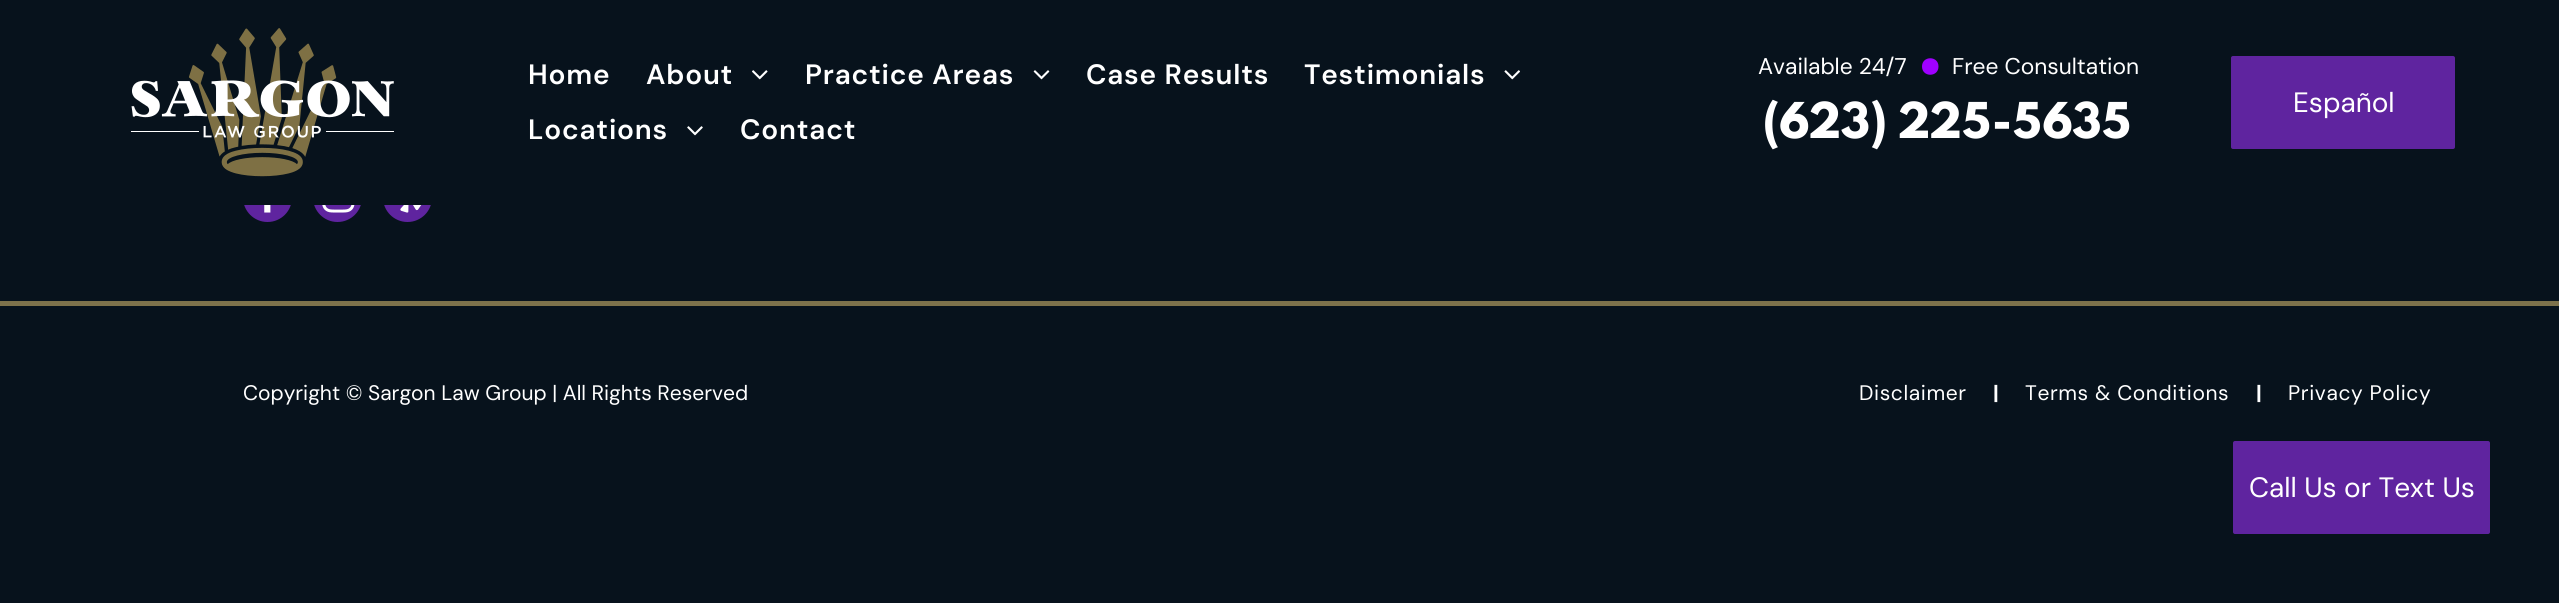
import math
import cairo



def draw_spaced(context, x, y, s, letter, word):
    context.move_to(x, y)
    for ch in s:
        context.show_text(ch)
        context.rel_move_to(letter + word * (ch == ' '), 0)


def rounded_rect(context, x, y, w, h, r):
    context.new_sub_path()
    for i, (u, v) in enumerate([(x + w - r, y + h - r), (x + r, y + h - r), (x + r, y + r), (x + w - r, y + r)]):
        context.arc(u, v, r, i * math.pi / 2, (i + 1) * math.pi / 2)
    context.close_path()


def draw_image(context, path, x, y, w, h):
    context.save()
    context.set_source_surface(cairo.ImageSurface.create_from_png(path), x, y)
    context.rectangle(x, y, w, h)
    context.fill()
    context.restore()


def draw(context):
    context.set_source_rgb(7 / 255, 18 / 255, 28 / 255)
    context.paint()
    context.set_source_rgb(95 / 255, 36 / 255, 159 / 255)
    context.arc(267.5, 197.5, 24.5, 0, 2 * math.pi)
    context.fill()
    context.arc(337.5, 197.5, 24.5, 0, 2 * math.pi)
    context.fill()
    context.arc(407.5, 197.5, 24.5, 0, 2 * math.pi)
    context.fill()
    context.set_source_rgb(7 / 255, 18 / 255, 28 / 255)
    context.rectangle(243, 173, 189, 32)
    context.fill()
    draw_image(context, "images/1.png", 131, 28, 263, 149)
    draw_image(context, "images/2.png", 752, 70, 16, 10)
    draw_image(context, "images/3.png", 1033, 70, 17, 10)
    draw_image(context, "images/4.png", 1504, 70, 16, 10)
    draw_image(context, "images/5.png", 687, 126, 16, 10)
    context.set_source_rgb(159 / 255, 0, 1)
    context.new_path()
    context.move_to(1938.5, 66.5)
    context.curve_to(1938.5, 77.5, 1922, 77.5, 1922, 66.5)
    context.curve_to(1922, 55.5, 1938.5, 55.5, 1938.5, 66.5)
    context.fill()
    context.set_source_rgb(95 / 255, 36 / 255, 159 / 255)
    rounded_rect(context, 2231, 56, 224, 93, 2)
    context.fill()
    context.set_source_rgb(125 / 255, 114 / 255, 75 / 255)
    context.rectangle(0, 301, 2559, 5)
    context.fill()
    draw_image(context, "images/6.png", 264, 205, 7, 8)
    draw_image(context, "images/7.png", 322, 205, 33, 8)
    draw_image(context, "images/8.png", 400, 205, 22, 8)
    context.set_source_rgb(95 / 255, 36 / 255, 159 / 255)
    rounded_rect(context, 2233, 441, 257, 93, 2)
    context.fill()
    context.select_font_face("DM Sans SemiBold")
    context.set_font_size(28)
    context.set_source_rgb(1, 1, 1)
    draw_spaced(context, 528, 84, "Home", 0.8, 0)
    draw_spaced(context, 646, 84, "About", 0.8, 0)
    draw_spaced(context, 805, 84, "Practice Areas", 0.8, 0)
    draw_spaced(context, 1086, 84, "Case Results", 0.8, 0)
    draw_spaced(context, 1304, 84, "Testimonials", 0.8, 0)
    draw_spaced(context, 528, 139, "Locations", 0.8, 0)
    draw_spaced(context, 740, 139, "Contact", 0.8, 0)
    context.select_font_face("DM Sans")
    context.set_font_size(22.75)
    context.move_to(1758, 74)
    context.show_text("Available 24/7")
    context.move_to(1952, 74)
    context.show_text("Free Consultation")
    context.select_font_face("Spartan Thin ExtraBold")
    context.set_font_size(43.75)
    context.move_to(1763, 138)
    context.show_text("(623) 225-5635")
    context.select_font_face("DM Sans")
    context.set_font_size(28)
    context.move_to(2293, 112)
    context.show_text("Español")
    context.set_font_size(21)
    context.move_to(243, 400)
    context.show_text("Copyright © Sargon Law Group | All Rights Reserved")
    draw_spaced(context, 1859, 400, "Disclaimer", 0.6, 0)
    context.select_font_face("DM Sans", cairo.FontSlant.NORMAL, cairo.FontWeight.BOLD)
    context.move_to(1993, 400)
    context.show_text("|")
    context.select_font_face("DM Sans")
    draw_spaced(context, 2025, 400, "Terms & Conditions", 0.6, 0)
    context.select_font_face("DM Sans", cairo.FontSlant.NORMAL, cairo.FontWeight.BOLD)
    context.move_to(2256, 400)
    context.show_text("|")
    context.select_font_face("DM Sans")
    draw_spaced(context, 2288, 400, "Privacy Policy", 0.6, 0)
    context.set_font_size(28)
    context.move_to(2249, 497)
    context.show_text("Call Us or Text Us")


surface = cairo.ImageSurface(cairo.Format.RGB24, 2559, 603)
context = cairo.Context(surface)
options = cairo.FontOptions()
options.set_hint_metrics(cairo.HintMetrics.OFF)
options.set_hint_style(cairo.HintStyle.NONE)
context.set_font_options(options)
context.set_miter_limit(4)
draw(context)
surface.write_to_png("out.png")
